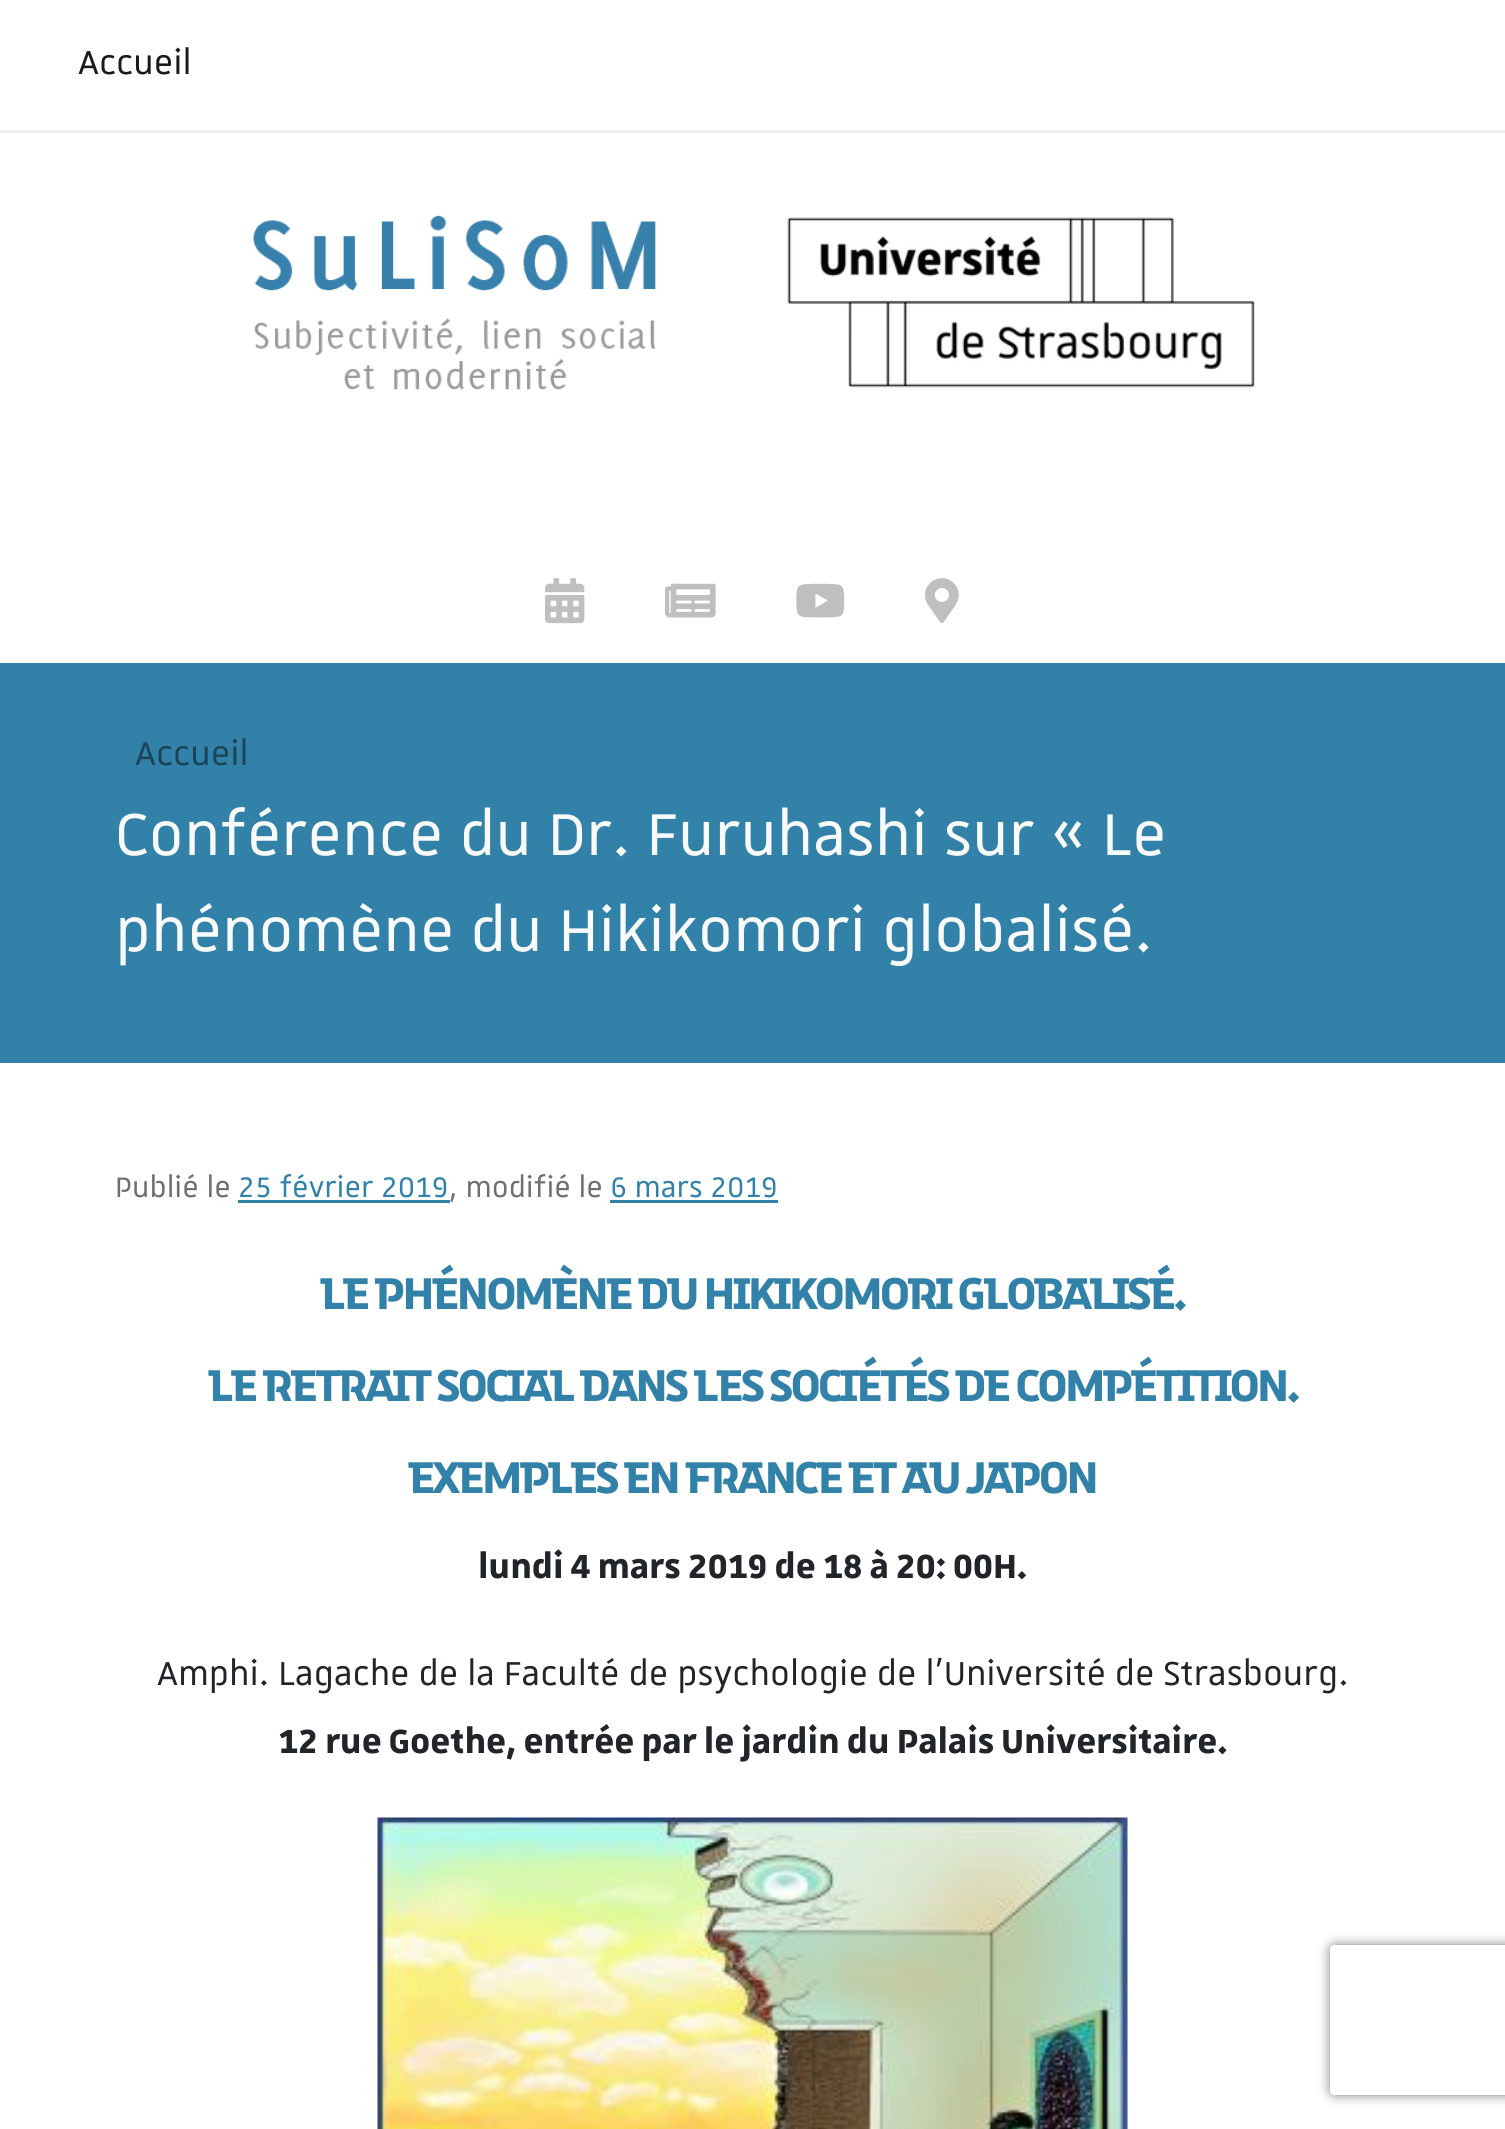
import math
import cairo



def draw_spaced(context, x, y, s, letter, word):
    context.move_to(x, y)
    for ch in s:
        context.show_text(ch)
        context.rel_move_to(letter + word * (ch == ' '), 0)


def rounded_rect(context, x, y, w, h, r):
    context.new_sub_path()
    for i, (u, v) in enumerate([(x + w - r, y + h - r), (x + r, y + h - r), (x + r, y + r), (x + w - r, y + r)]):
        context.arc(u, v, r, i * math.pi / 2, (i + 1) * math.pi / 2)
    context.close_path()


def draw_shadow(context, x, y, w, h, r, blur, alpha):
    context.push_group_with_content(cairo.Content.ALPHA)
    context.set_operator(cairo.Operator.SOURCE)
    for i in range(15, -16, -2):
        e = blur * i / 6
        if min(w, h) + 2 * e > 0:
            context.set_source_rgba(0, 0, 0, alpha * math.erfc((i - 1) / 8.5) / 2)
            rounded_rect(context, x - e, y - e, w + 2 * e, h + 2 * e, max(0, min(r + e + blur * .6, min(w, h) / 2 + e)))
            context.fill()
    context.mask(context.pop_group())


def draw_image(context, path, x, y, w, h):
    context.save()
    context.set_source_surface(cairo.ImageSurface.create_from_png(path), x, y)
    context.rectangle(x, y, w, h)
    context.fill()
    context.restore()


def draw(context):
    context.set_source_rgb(1, 1, 1)
    context.paint()
    context.set_source_rgb(237 / 255, 237 / 255, 237 / 255)
    context.rectangle(0, 130, 1505, 3)
    context.fill()
    draw_image(context, "images/1.png", 253, 215, 403, 175)
    draw_image(context, "images/2.png", 787, 217, 468, 171)
    draw_image(context, "images/3.png", 545, 578, 40, 46)
    draw_image(context, "images/4.png", 665, 583, 51, 35)
    draw_image(context, "images/5.png", 796, 583, 49, 35)
    draw_image(context, "images/6.png", 925, 578, 34, 45)
    context.set_source_rgb(50 / 255, 129 / 255, 168 / 255)
    context.rectangle(0, 663, 1505, 400)
    context.fill()
    context.rectangle(238, 1200, 212, 3)
    context.fill()
    context.rectangle(610, 1200, 168, 3)
    context.fill()
    draw_image(context, "images/7.png", 377, 1817, 751, 312)
    context.save()
    context.set_fill_rule(cairo.FillRule.EVEN_ODD)
    context.new_path()
    context.move_to(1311, 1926)
    context.line_to(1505, 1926)
    context.line_to(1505, 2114)
    context.line_to(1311, 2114)
    context.close_path()
    context.move_to(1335, 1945)
    context.line_to(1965, 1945)
    context.curve_to(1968, 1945, 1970, 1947, 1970, 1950)
    context.line_to(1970, 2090)
    context.curve_to(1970, 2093, 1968, 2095, 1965, 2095)
    context.line_to(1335, 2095)
    context.curve_to(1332, 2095, 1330, 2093, 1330, 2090)
    context.line_to(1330, 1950)
    context.curve_to(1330, 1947, 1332, 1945, 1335, 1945)
    context.close_path()
    context.clip()
    context.set_source_rgb(128 / 255, 128 / 255, 128 / 255)
    draw_shadow(context, 1330, 1945, 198, 150, 5, 6, 1)
    context.restore()
    context.select_font_face("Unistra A")
    context.set_font_size(45)
    context.set_source_rgb(26 / 255, 26 / 255, 26 / 255)
    context.move_to(78, 74)
    context.show_text("Accueil")
    context.set_source_rgb(27 / 255, 69 / 255, 89 / 255)
    context.move_to(135, 765)
    context.show_text("Accueil")
    context.set_font_size(80)
    context.set_source_rgb(249 / 255, 250 / 255, 250 / 255)
    context.move_to(115, 855)
    context.show_text("Conférence du Dr. Furuhashi sur « Le")
    context.move_to(115, 951)
    context.show_text("phénomène du Hikikomori globalisé.")
    context.set_font_size(38.25)
    context.set_source_rgb(107 / 255, 112 / 255, 115 / 255)
    context.move_to(115, 1197)
    context.show_text("Publié le")
    context.set_source_rgb(50 / 255, 129 / 255, 168 / 255)
    context.move_to(238, 1197)
    context.show_text("25 février 2019")
    context.set_source_rgb(107 / 255, 112 / 255, 115 / 255)
    context.move_to(449, 1197)
    context.show_text(", modifié le")
    context.set_source_rgb(50 / 255, 129 / 255, 168 / 255)
    context.move_to(610, 1197)
    context.show_text("6 mars 2019")
    context.select_font_face("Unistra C", cairo.FontSlant.NORMAL, cairo.FontWeight.BOLD)
    context.set_font_size(60)
    draw_spaced(context, 320, 1309, "LE PHÉNOMÈNE DU HIKIKOMORI GLOBALISÉ.", -2.5, 0)
    draw_spaced(context, 208, 1401, "LE RETRAIT SOCIAL DANS LES SOCIÉTÉS DE COMPÉTITION.", -2.5, 0)
    draw_spaced(context, 408, 1493, "EXEMPLES EN FRANCE ET AU JAPON", -2.5, 0)
    context.select_font_face("Unistra A", cairo.FontSlant.NORMAL, cairo.FontWeight.BOLD)
    context.set_font_size(45)
    context.set_source_rgb(33 / 255, 37 / 255, 41 / 255)
    context.move_to(478, 1578)
    context.show_text("lundi 4 mars 2019 de 18 à 20: 00H.")
    context.select_font_face("Unistra A")
    context.move_to(157, 1685)
    context.show_text("Amphi. Lagache de la Faculté de psychologie de l’Université de Strasbourg.")
    context.select_font_face("Unistra A", cairo.FontSlant.NORMAL, cairo.FontWeight.BOLD)
    context.move_to(278, 1753)
    context.show_text("12 rue Goethe, entrée par le jardin du Palais Universitaire.")


surface = cairo.ImageSurface(cairo.Format.RGB24, 1505, 2129)
context = cairo.Context(surface)
options = cairo.FontOptions()
options.set_hint_metrics(cairo.HintMetrics.OFF)
options.set_hint_style(cairo.HintStyle.NONE)
context.set_font_options(options)
context.set_miter_limit(4)
draw(context)
surface.write_to_png("out.png")
